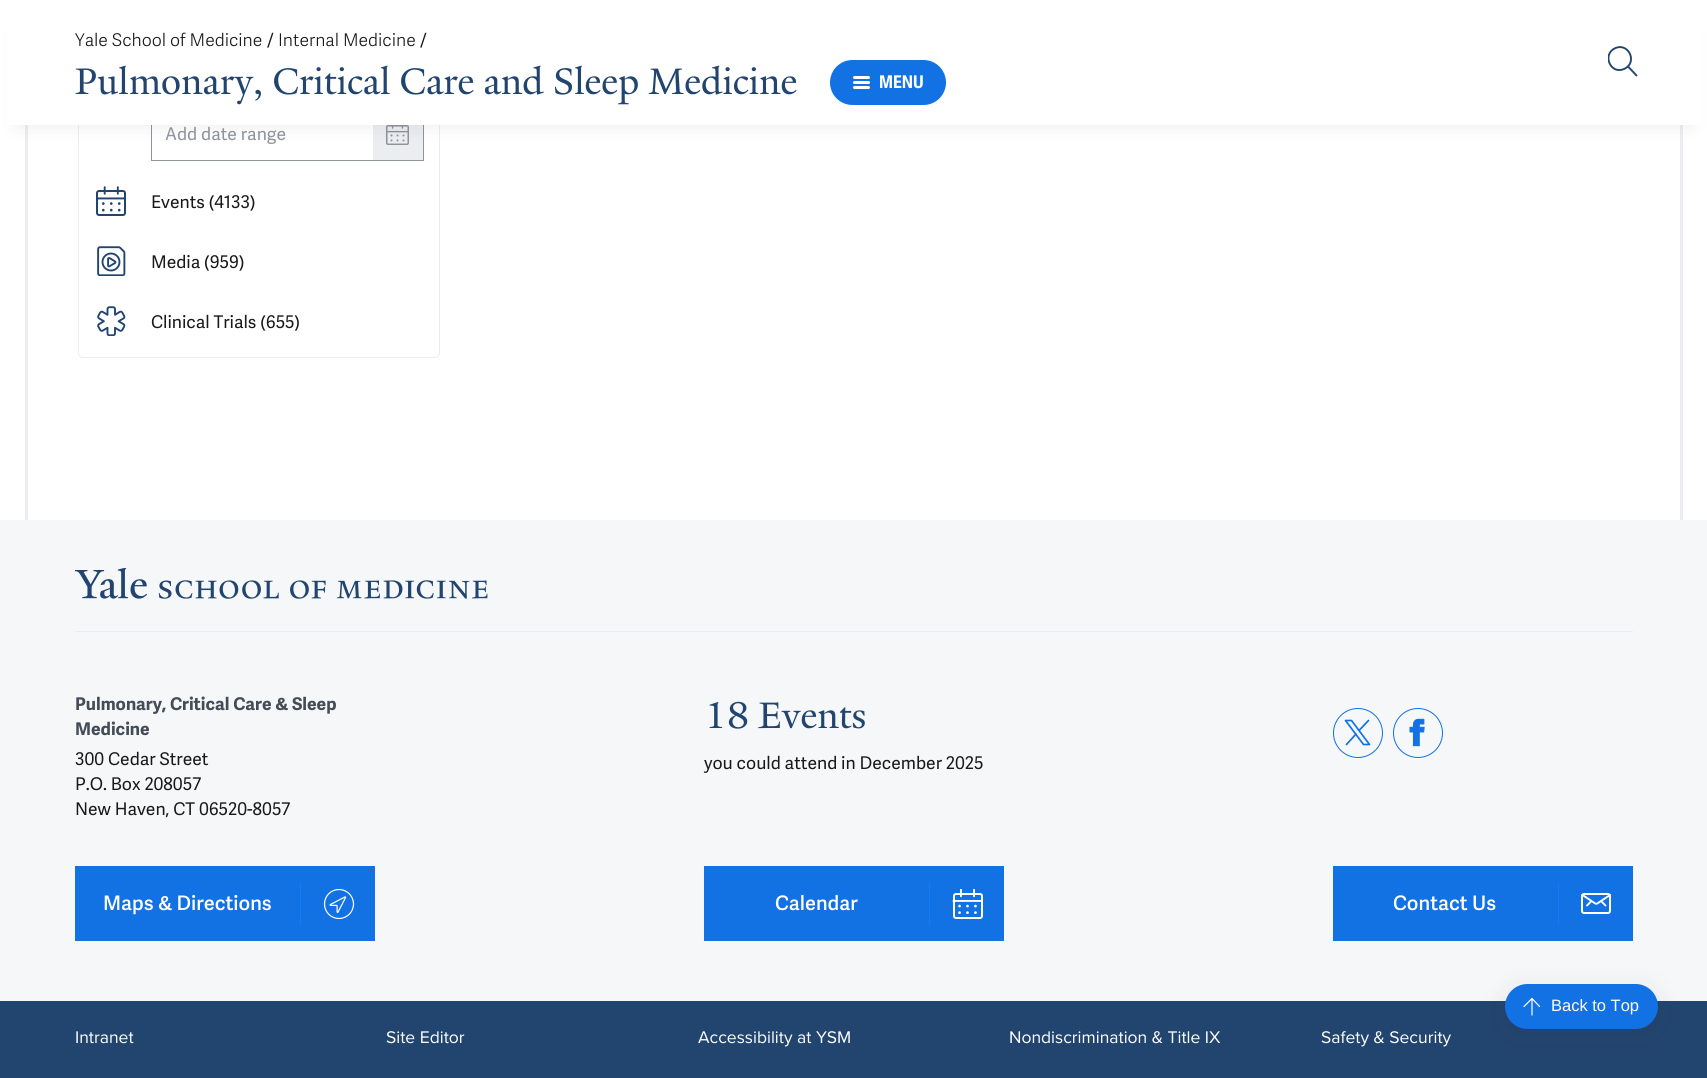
import math
import cairo



def rounded_rect(context, x, y, w, h, r):
    context.new_sub_path()
    for i, (u, v) in enumerate([(x + w - r, y + h - r), (x + r, y + h - r), (x + r, y + r), (x + w - r, y + r)]):
        context.arc(u, v, r, i * math.pi / 2, (i + 1) * math.pi / 2)
    context.close_path()


def draw_shadow(context, x, y, w, h, r, blur, alpha):
    context.push_group_with_content(cairo.Content.ALPHA)
    context.set_operator(cairo.Operator.SOURCE)
    for i in range(15, -16, -2):
        e = blur * i / 6
        if min(w, h) + 2 * e > 0:
            context.set_source_rgba(0, 0, 0, alpha * math.erfc((i - 1) / 8.5) / 2)
            rounded_rect(context, x - e, y - e, w + 2 * e, h + 2 * e, max(0, min(r + e + blur * .6, min(w, h) / 2 + e)))
            context.fill()
    context.mask(context.pop_group())


def draw_image(context, path, x, y, w, h):
    context.save()
    context.set_source_surface(cairo.ImageSurface.create_from_png(path), x, y)
    context.rectangle(x, y, w, h)
    context.fill()
    context.restore()


def draw(context):
    context.set_source_rgb(1, 1, 1)
    context.paint()
    context.set_source_rgb(235 / 255, 237 / 255, 240 / 255)
    context.rectangle(1680, 125, 3, 395)
    context.fill()
    context.rectangle(25, 125, 3, 395)
    context.fill()
    rounded_rect(context, 78.5, -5.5, 361, 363, 4.5)
    context.set_line_width(1)
    context.stroke()
    context.rectangle(151.5, 106.5, 272, 54)
    context.set_source_rgb(141 / 255, 148 / 255, 158 / 255)
    context.stroke()
    context.set_source_rgb(235 / 255, 237 / 255, 240 / 255)
    context.rectangle(373, 125, 50, 35)
    context.fill()
    draw_image(context, "images/1.png", 386, 125, 23, 20)
    context.set_source_rgb(25 / 255, 25 / 255, 25 / 255)
    draw_shadow(context, 18, 35, 1672, 90, 0, 9, 0.1)
    context.set_source_rgb(1, 1, 1)
    context.rectangle(7, 0, 1694, 125)
    context.fill()
    context.set_source_rgb(18 / 255, 113 / 255, 227 / 255)
    rounded_rect(context, 830, 60, 116, 45, 22.5)
    context.fill()
    context.set_source_rgb(1, 1, 1)
    rounded_rect(context, 853, 76, 17, 3, 1.5)
    context.fill()
    rounded_rect(context, 853, 81, 17, 3, 1.5)
    context.fill()
    rounded_rect(context, 853, 86, 17, 3, 1.5)
    context.fill()
    context.save()
    context.rectangle(1608, 46, 30, 30)
    context.clip()
    context.new_path()
    context.move_to(1615.5, 48)
    context.curve_to(1629, 42.5, 1638, 63, 1624, 69)
    context.curve_to(1610.5, 75, 1601.5, 54, 1615.5, 48)
    context.close_path()
    context.set_source_rgb(34 / 255, 69 / 255, 112 / 255)
    context.set_line_width(1.9)
    context.set_line_cap(cairo.LineCap.ROUND)
    context.set_line_join(cairo.LineJoin.ROUND)
    context.stroke()
    context.restore()
    context.new_path()
    context.move_to(1628, 66.5)
    context.line_to(1636.5, 75.5)
    context.set_source_rgb(34 / 255, 69 / 255, 112 / 255)
    context.set_line_width(1.9)
    context.set_line_cap(cairo.LineCap.ROUND)
    context.set_line_join(cairo.LineJoin.ROUND)
    context.stroke()
    draw_image(context, "images/2.png", 96, 186, 30, 30)
    draw_image(context, "images/3.png", 97, 246, 29, 30)
    draw_image(context, "images/4.png", 97, 306, 29, 30)
    context.set_source_rgb(246 / 255, 247 / 255, 249 / 255)
    context.rectangle(0, 520, 1707, 481)
    context.fill()
    context.set_source_rgb(235 / 255, 237 / 255, 240 / 255)
    context.rectangle(75, 631, 1558, 1)
    context.fill()
    draw_image(context, "images/5.png", 75, 568, 413, 31)
    context.set_source_rgb(18 / 255, 113 / 255, 227 / 255)
    context.rectangle(75, 866, 300, 75)
    context.fill()
    context.set_source_rgb(19 / 255, 123 / 255, 248 / 255)
    context.rectangle(300, 883, 1, 42)
    context.fill()
    draw_image(context, "images/6.png", 323, 889, 32, 30)
    context.set_source_rgb(18 / 255, 113 / 255, 227 / 255)
    context.rectangle(704, 866, 300, 75)
    context.fill()
    context.set_source_rgb(19 / 255, 123 / 255, 248 / 255)
    context.rectangle(929, 883, 1, 42)
    context.fill()
    draw_image(context, "images/7.png", 952, 889, 31, 30)
    context.arc(1358, 733, 24.5, 0, 2 * math.pi)
    context.set_source_rgb(18 / 255, 113 / 255, 227 / 255)
    context.set_line_width(1)
    context.set_line_cap(cairo.LineCap.BUTT)
    context.set_line_join(cairo.LineJoin.MITER)
    context.stroke()
    context.new_path()
    context.move_to(1363.5, 744.5)
    context.line_to(1345.5, 720.5)
    context.line_to(1351.5, 720.5)
    context.line_to(1369.5, 744.5)
    context.close_path()
    context.move_to(1368.5, 720.5)
    context.line_to(1359, 730.5)
    context.move_to(1346.5, 744.5)
    context.line_to(1356, 734)
    context.set_line_width(1.7)
    context.set_line_cap(cairo.LineCap.ROUND)
    context.set_line_join(cairo.LineJoin.ROUND)
    context.stroke()
    context.arc(1418, 733, 24.5, 0, 2 * math.pi)
    context.set_line_width(1)
    context.set_line_cap(cairo.LineCap.BUTT)
    context.set_line_join(cairo.LineJoin.MITER)
    context.stroke()
    draw_image(context, "images/8.png", 1409, 718, 16, 29)
    context.rectangle(1333, 866, 300, 75)
    context.fill()
    context.set_source_rgb(19 / 255, 123 / 255, 248 / 255)
    context.rectangle(1558, 883, 1, 42)
    context.fill()
    rounded_rect(context, 1582, 894, 28, 19, 2)
    context.set_source_rgb(1, 1, 1)
    context.set_line_width(2)
    context.stroke()
    context.new_path()
    context.move_to(1601, 901)
    context.line_to(1605.5, 905.5)
    context.move_to(1591.5, 901)
    context.line_to(1587, 905.5)
    context.move_to(1610, 895)
    context.line_to(1598, 903)
    context.curve_to(1597, 904, 1595.5, 904, 1594.5, 903)
    context.line_to(1582.5, 895)
    context.set_line_width(1.9)
    context.set_line_cap(cairo.LineCap.ROUND)
    context.set_line_join(cairo.LineJoin.ROUND)
    context.stroke()
    context.set_source_rgb(34 / 255, 69 / 255, 112 / 255)
    context.rectangle(0, 1001, 1707, 77)
    context.fill()
    context.set_source_rgb(25 / 255, 25 / 255, 25 / 255)
    draw_shadow(context, 1505, 990, 153, 45, 22.5, 12.5, 0.1)
    context.set_source_rgb(18 / 255, 113 / 255, 227 / 255)
    rounded_rect(context, 1505, 984, 153, 45, 22.5)
    context.fill()
    context.new_path()
    context.move_to(1532, 1015)
    context.line_to(1532, 998.5)
    context.move_to(1539.5, 1006.5)
    context.line_to(1532, 998.5)
    context.line_to(1524, 1006.5)
    context.set_source_rgb(1, 1, 1)
    context.set_line_width(1.2)
    context.stroke()
    context.select_font_face("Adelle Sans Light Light")
    context.set_font_size(17.5)
    context.set_source_rgb(25 / 255, 25 / 255, 25 / 255)
    context.move_to(75, 46)
    context.show_text("Yale School of Medicine")
    context.select_font_face("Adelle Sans")
    context.move_to(267, 46)
    context.show_text("/")
    context.select_font_face("Adelle Sans Light Light")
    context.move_to(278, 46)
    context.show_text("Internal Medicine")
    context.select_font_face("Adelle Sans")
    context.move_to(420, 46)
    context.show_text("/")
    context.select_font_face("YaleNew")
    context.set_font_size(40)
    context.set_source_rgb(34 / 255, 69 / 255, 112 / 255)
    context.move_to(75, 94)
    context.show_text("Pulmonary, Critical Care and Sleep Medicine")
    context.select_font_face("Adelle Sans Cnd", cairo.FontSlant.NORMAL, cairo.FontWeight.BOLD)
    context.set_font_size(17.5)
    context.set_source_rgb(1, 1, 1)
    context.move_to(879, 88)
    context.show_text("MENU")
    context.select_font_face("Adelle Sans")
    context.set_source_rgb(141 / 255, 148 / 255, 158 / 255)
    context.move_to(165, 140)
    context.show_text("Add date range")
    context.set_source_rgb(25 / 255, 25 / 255, 25 / 255)
    context.move_to(151, 208)
    context.show_text("Events (4133)")
    context.move_to(151, 268)
    context.show_text("Media (959)")
    context.move_to(151, 328)
    context.show_text("Clinical Trials (655)")
    context.select_font_face("Adelle Sans", cairo.FontSlant.NORMAL, cairo.FontWeight.BOLD)
    context.set_source_rgb(68 / 255, 76 / 255, 87 / 255)
    context.move_to(75, 710)
    context.show_text("Pulmonary, Critical Care & Sleep")
    context.move_to(75, 735)
    context.show_text("Medicine")
    context.select_font_face("Adelle Sans")
    context.set_source_rgb(25 / 255, 25 / 255, 25 / 255)
    context.move_to(75, 765)
    context.show_text("300 Cedar Street")
    context.move_to(75, 790)
    context.show_text("P.O. Box 208057")
    context.move_to(75, 815)
    context.show_text("New Haven, CT 06520-8057")
    context.select_font_face("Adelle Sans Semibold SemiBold")
    context.set_font_size(20)
    context.set_source_rgb(1, 1, 1)
    context.move_to(103, 910)
    context.show_text("Maps & Directions")
    context.select_font_face("YaleNew")
    context.set_font_size(40)
    context.set_source_rgb(34 / 255, 69 / 255, 112 / 255)
    context.move_to(704, 728)
    context.show_text("18 Events")
    context.select_font_face("Adelle Sans")
    context.set_font_size(17.5)
    context.set_source_rgb(25 / 255, 25 / 255, 25 / 255)
    context.move_to(704, 769)
    context.show_text("you could attend in December 2025")
    context.select_font_face("Adelle Sans Semibold SemiBold")
    context.set_font_size(20)
    context.set_source_rgb(1, 1, 1)
    context.move_to(775, 910)
    context.show_text("Calendar")
    context.move_to(1393, 910)
    context.show_text("Contact Us")
    context.select_font_face("Proxima Nova")
    context.set_font_size(17.5)
    context.move_to(75, 1043)
    context.show_text("Intranet")
    context.move_to(386, 1043)
    context.show_text("Site Editor")
    context.move_to(698, 1043)
    context.show_text("Accessibility at YSM")
    context.move_to(1009, 1043)
    context.show_text("Nondiscrimination & Title IX")
    context.move_to(1321, 1043)
    context.show_text("Safety & Security")
    context.select_font_face("Liberation Sans")
    context.set_font_size(16.5)
    context.move_to(1551, 1011)
    context.show_text("Back to Top")


surface = cairo.ImageSurface(cairo.Format.RGB24, 1707, 1078)
context = cairo.Context(surface)
options = cairo.FontOptions()
options.set_hint_metrics(cairo.HintMetrics.OFF)
options.set_hint_style(cairo.HintStyle.NONE)
context.set_font_options(options)
context.set_miter_limit(4)
draw(context)
surface.write_to_png("out.png")
